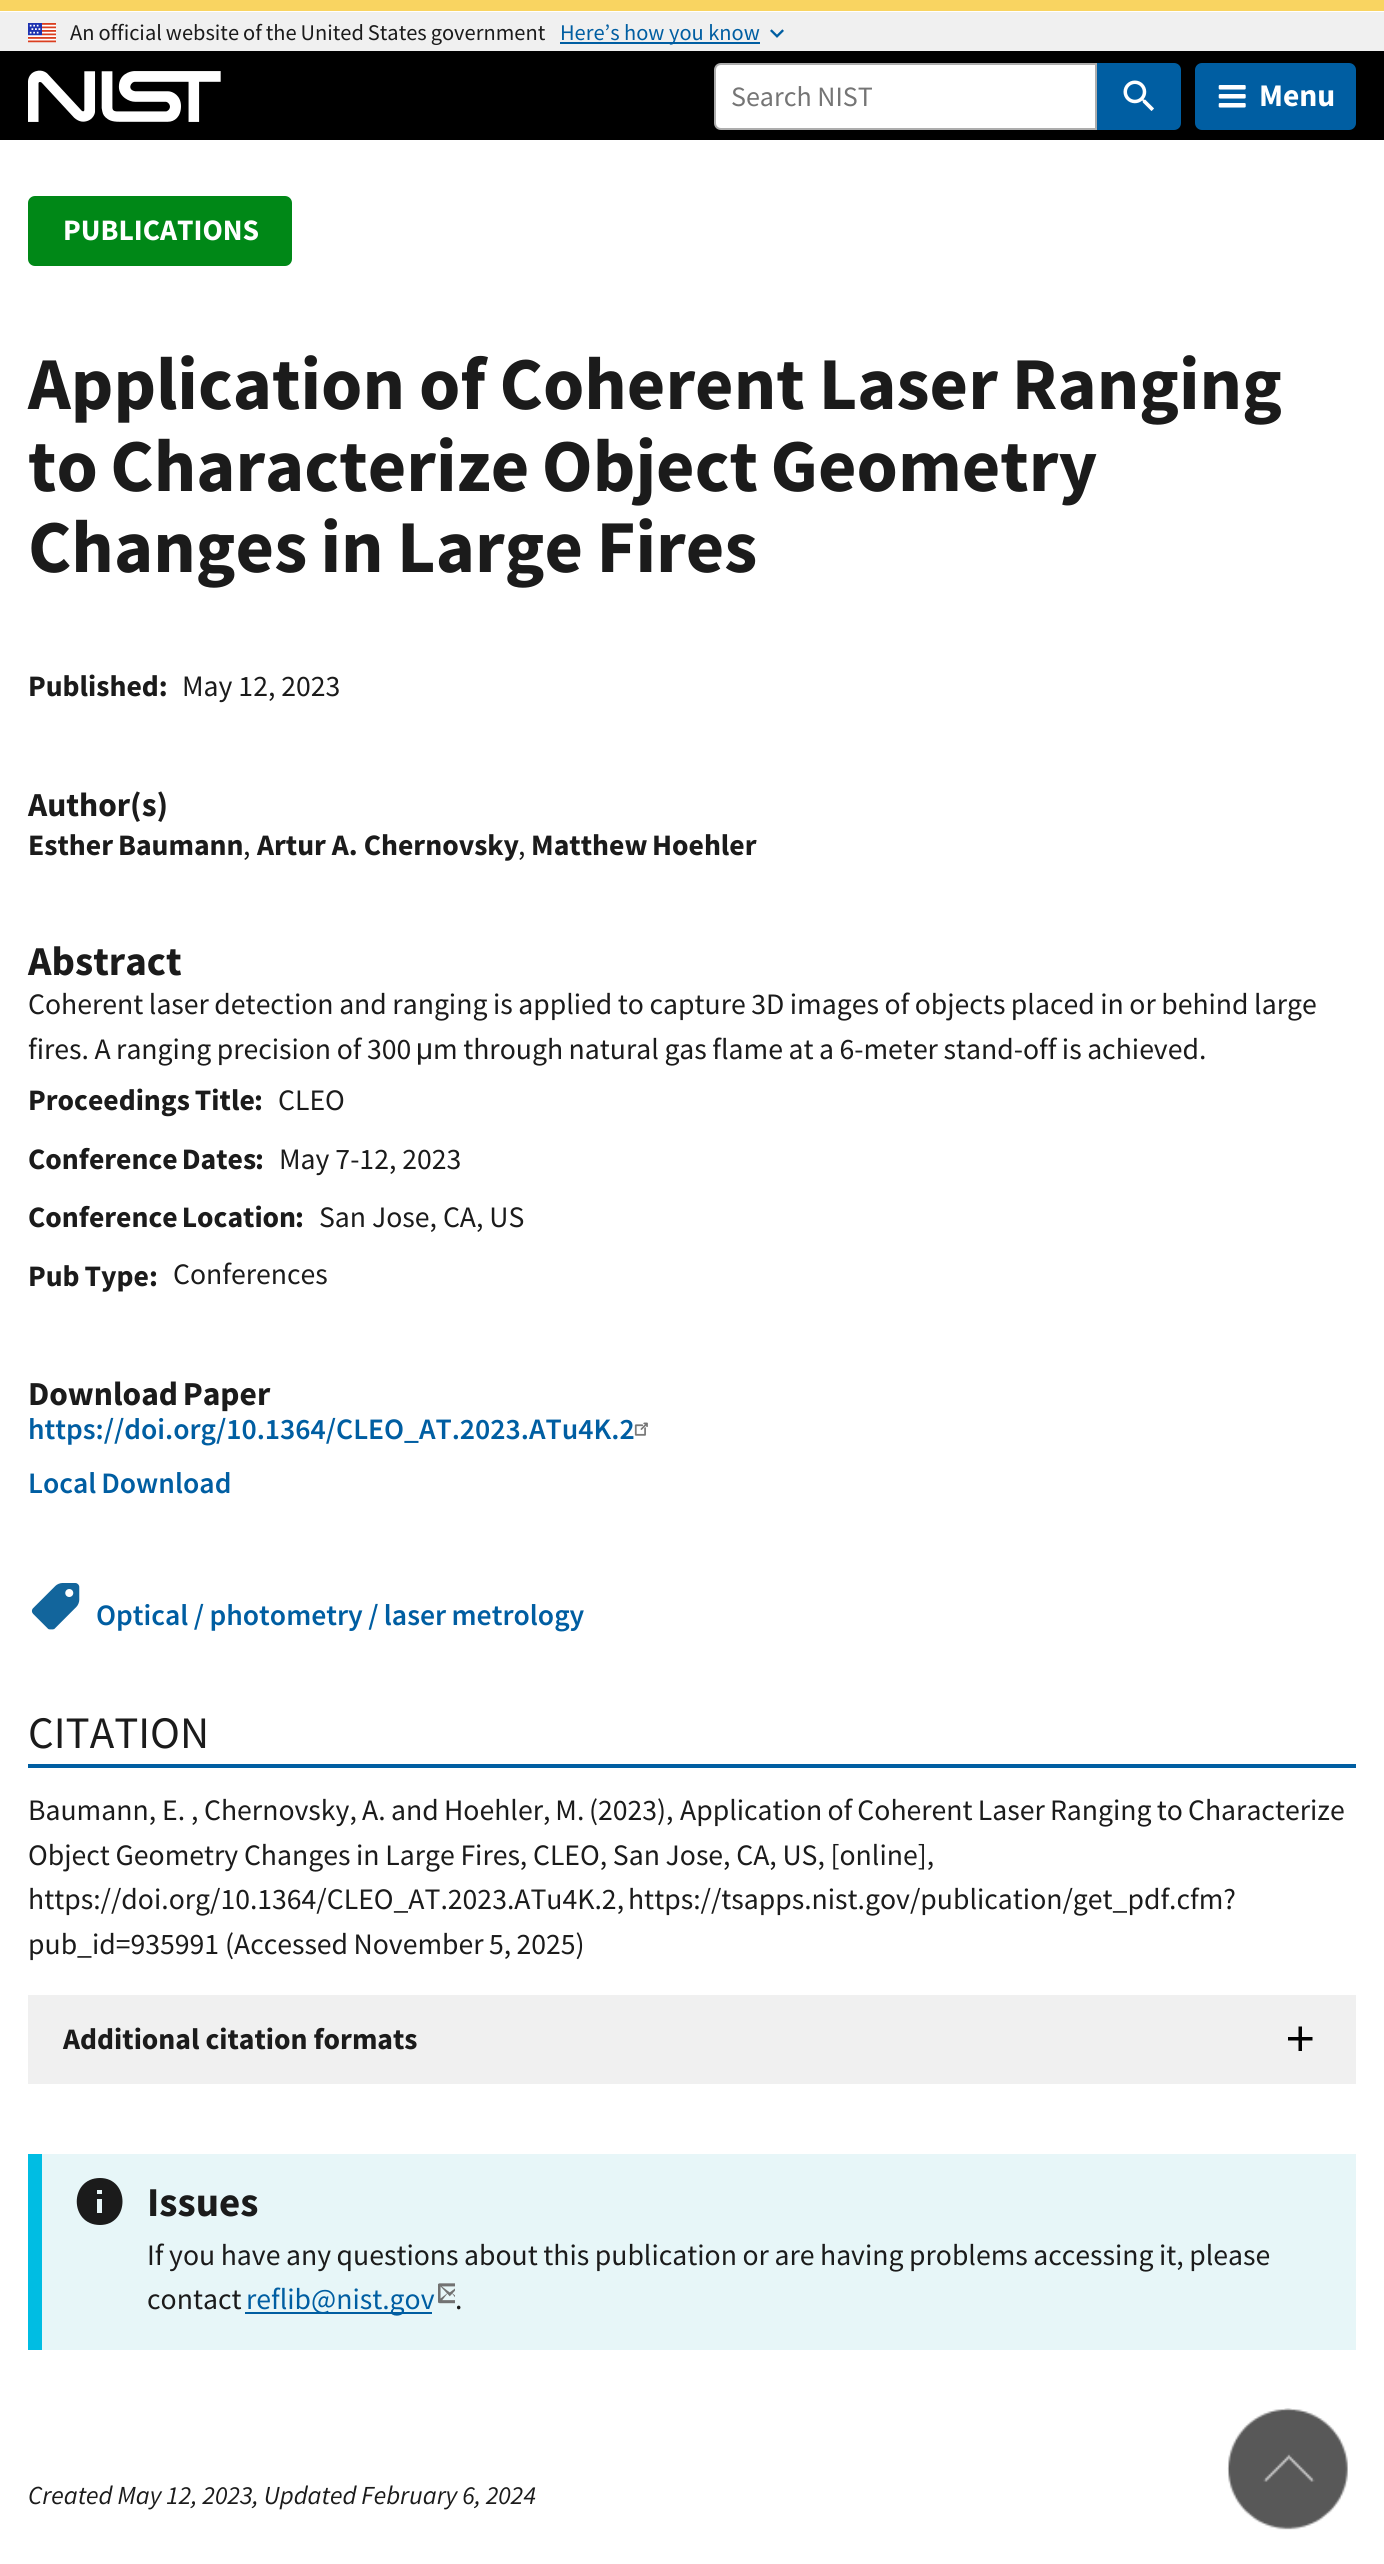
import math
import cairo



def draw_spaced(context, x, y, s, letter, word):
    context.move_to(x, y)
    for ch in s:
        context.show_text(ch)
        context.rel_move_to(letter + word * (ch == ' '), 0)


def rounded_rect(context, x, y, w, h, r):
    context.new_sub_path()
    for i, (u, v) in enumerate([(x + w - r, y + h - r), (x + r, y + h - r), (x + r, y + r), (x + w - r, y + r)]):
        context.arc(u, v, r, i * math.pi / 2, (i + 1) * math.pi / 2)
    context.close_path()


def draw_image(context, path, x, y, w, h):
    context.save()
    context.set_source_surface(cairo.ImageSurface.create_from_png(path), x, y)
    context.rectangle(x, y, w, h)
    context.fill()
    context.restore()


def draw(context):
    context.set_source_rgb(1, 1, 1)
    context.paint()
    context.set_source_rgb(249 / 255, 212 / 255, 97 / 255)
    context.rectangle(0, 0, 1384, 11)
    context.fill()
    context.set_source_rgb(240 / 255, 240 / 255, 240 / 255)
    context.rectangle(0, 12, 1384, 39)
    context.fill()
    draw_image(context, "images/1.png", 28, 23, 28, 20)
    context.set_source_rgb(0, 94 / 255, 162 / 255)
    context.rectangle(560, 42, 200, 2)
    context.fill()
    draw_image(context, "images/2.png", 770, 29, 14, 9)
    context.set_source_rgb(0, 0, 0)
    context.rectangle(0, 51, 1384, 89)
    context.fill()
    draw_image(context, "images/3.png", 28, 70, 193, 52)
    context.set_source_rgb(1, 1, 1)
    context.new_path()
    context.move_to(721, 64)
    context.line_to(1096, 64)
    context.line_to(1096, 129)
    context.line_to(721, 129)
    context.curve_to(717.5, 129, 715, 126.5, 715, 123)
    context.line_to(715, 70)
    context.curve_to(715, 66.5, 717.5, 64, 721, 64)
    context.close_path()
    context.fill_preserve()
    context.set_source_rgb(173 / 255, 173 / 255, 173 / 255)
    context.stroke()
    context.set_source_rgb(0, 94 / 255, 162 / 255)
    context.new_path()
    context.move_to(1097, 63)
    context.line_to(1174, 63)
    context.curve_to(1178, 63, 1181, 66, 1181, 70)
    context.line_to(1181, 123)
    context.curve_to(1181, 127, 1178, 130, 1174, 130)
    context.line_to(1097, 130)
    context.close_path()
    context.fill()
    draw_image(context, "images/4.png", 1123, 80, 31, 31)
    rounded_rect(context, 1195, 63, 161, 67, 7)
    context.fill()
    draw_image(context, "images/5.png", 1218, 85, 28, 23)
    context.set_source_rgb(0, 136 / 255, 23 / 255)
    rounded_rect(context, 28, 196, 264, 70, 7)
    context.fill()
    draw_image(context, "images/6.png", 634, 1422, 14, 14)
    draw_image(context, "images/7.png", 31, 1583, 49, 47)
    context.set_source_rgb(0, 94 / 255, 162 / 255)
    context.rectangle(28, 1764, 1328, 4)
    context.fill()
    context.set_source_rgb(240 / 255, 240 / 255, 240 / 255)
    context.rectangle(28, 1995, 1328, 89)
    context.fill()
    draw_image(context, "images/8.png", 1288, 2026, 25, 25)
    context.set_source_rgb(231 / 255, 246 / 255, 248 / 255)
    context.rectangle(42, 2154, 1314, 196)
    context.fill()
    context.set_source_rgb(0, 189 / 255, 227 / 255)
    context.rectangle(28, 2154, 14, 196)
    context.fill()
    context.set_source_rgb(27 / 255, 27 / 255, 27 / 255)
    context.new_path()
    context.move_to(100, 2178)
    context.curve_to(69, 2178, 69, 2225, 100, 2225)
    context.curve_to(130, 2225, 130, 2178, 100, 2178)
    context.close_path()
    context.move_to(102, 2213)
    context.line_to(97, 2213)
    context.line_to(97, 2199)
    context.line_to(102, 2199)
    context.close_path()
    context.move_to(102, 2194)
    context.line_to(97, 2194)
    context.line_to(97, 2190)
    context.line_to(102, 2190)
    context.close_path()
    context.fill()
    context.set_source_rgb(0, 94 / 255, 162 / 255)
    context.rectangle(245, 2312, 187, 2)
    context.fill()
    draw_image(context, "images/9.png", 438, 2283, 17, 21)
    draw_image(context, "images/10.png", 1227, 2408, 121, 122)
    context.select_font_face("Source Sans Pro")
    context.set_font_size(22.4)
    context.set_source_rgb(27 / 255, 27 / 255, 27 / 255)
    draw_spaced(context, 70, 40, "An official website of the United States government", 0, -0.5)
    context.set_source_rgb(0, 94 / 255, 162 / 255)
    context.move_to(560, 40)
    context.show_text("Here’s how you know")
    context.set_font_size(28)
    context.set_source_rgb(117 / 255, 117 / 255, 117 / 255)
    context.move_to(731, 106)
    context.show_text("Search NIST")
    context.select_font_face("Source Sans Pro", cairo.FontSlant.NORMAL, cairo.FontWeight.BOLD)
    context.set_font_size(31.5)
    context.set_source_rgb(1, 1, 1)
    context.move_to(1259, 106)
    context.show_text("Menu")
    context.set_font_size(29.7)
    context.move_to(63, 240)
    context.show_text("PUBLICATIONS")
    context.set_font_size(74.5)
    context.set_source_rgb(27 / 255, 27 / 255, 27 / 255)
    draw_spaced(context, 28, 409, "Application of Coherent Laser Ranging", 0, -1)
    draw_spaced(context, 28, 491, "to Characterize Object Geometry", 0, -2.5)
    draw_spaced(context, 28, 572, "Changes in Large Fires", 0, -1.5)
    context.set_font_size(29.7)
    context.move_to(28, 696)
    context.show_text("Published:")
    context.select_font_face("Source Sans Pro")
    context.move_to(182, 696)
    context.show_text("May 12, 2023")
    context.select_font_face("Source Sans Pro", cairo.FontSlant.NORMAL, cairo.FontWeight.BOLD)
    context.set_font_size(33.5)
    context.move_to(28, 816)
    context.show_text("Author(s)")
    context.set_font_size(29.7)
    context.move_to(28, 855)
    context.show_text("Esther")
    context.move_to(118, 855)
    context.show_text("Baumann")
    context.select_font_face("Source Sans Pro")
    context.move_to(243, 855)
    context.show_text(",")
    context.select_font_face("Source Sans Pro", cairo.FontSlant.NORMAL, cairo.FontWeight.BOLD)
    context.move_to(257, 855)
    context.show_text("Artur A. Chernovsky")
    context.select_font_face("Source Sans Pro")
    context.move_to(518, 855)
    context.show_text(",")
    context.select_font_face("Source Sans Pro", cairo.FontSlant.NORMAL, cairo.FontWeight.BOLD)
    context.move_to(531, 855)
    context.show_text("Matthew")
    context.move_to(652, 855)
    context.show_text("Hoehler")
    context.set_font_size(41)
    context.move_to(28, 975)
    context.show_text("Abstract")
    context.select_font_face("Source Sans Pro")
    context.set_font_size(29.7)
    draw_spaced(context, 28, 1014, "Coherent laser detection and ranging is applied to capture 3D images of objects placed in or behind large", 0, -0.4)
    draw_spaced(context, 28, 1059, "fires. A ranging precision of 300", 0, -0.4)
    context.select_font_face("Liberation Sans")
    context.move_to(416, 1059)
    context.show_text("μ")
    context.select_font_face("Source Sans Pro")
    draw_spaced(context, 433, 1059, "m through natural gas flame at a 6-meter stand-off is achieved.", 0, -0.4)
    context.select_font_face("Source Sans Pro", cairo.FontSlant.NORMAL, cairo.FontWeight.BOLD)
    draw_spaced(context, 28, 1110, "Proceedings Title", 0, -1)
    context.move_to(254, 1110)
    context.show_text(":")
    context.select_font_face("Source Sans Pro")
    context.move_to(278, 1110)
    context.show_text("CLEO")
    context.select_font_face("Source Sans Pro", cairo.FontSlant.NORMAL, cairo.FontWeight.BOLD)
    draw_spaced(context, 28, 1169, "Conference Dates", 0, -2)
    context.move_to(255, 1169)
    context.show_text(":")
    context.select_font_face("Source Sans Pro")
    context.move_to(279, 1169)
    context.show_text("May 7-12, 2023")
    context.select_font_face("Source Sans Pro", cairo.FontSlant.NORMAL, cairo.FontWeight.BOLD)
    draw_spaced(context, 28, 1227, "Conference Location", 0, -2)
    context.move_to(295, 1227)
    context.show_text(":")
    context.select_font_face("Source Sans Pro")
    context.move_to(319, 1227)
    context.show_text("San Jose, CA, US")
    context.select_font_face("Source Sans Pro", cairo.FontSlant.NORMAL, cairo.FontWeight.BOLD)
    draw_spaced(context, 28, 1286, "Pub Type", 0, -1)
    context.move_to(149, 1286)
    context.show_text(":")
    context.select_font_face("Source Sans Pro")
    context.move_to(173, 1284)
    context.show_text("Conferences")
    context.select_font_face("Source Sans Pro", cairo.FontSlant.NORMAL, cairo.FontWeight.BOLD)
    context.set_font_size(33.5)
    draw_spaced(context, 28, 1405, "Download Paper", 0, -2)
    context.select_font_face("Source Sans Pro SemiBold")
    context.set_font_size(29.7)
    context.set_source_rgb(0, 94 / 255, 162 / 255)
    context.move_to(28, 1439)
    context.show_text("https://doi.org/10.1364/CLEO_AT.2023.ATu4K.2")
    draw_spaced(context, 28, 1493, "Local Download", 0, -1)
    draw_spaced(context, 96, 1625, "Optical / photometry / laser metrology", 0, -0.5)
    context.select_font_face("Source Sans Pro")
    context.set_font_size(45)
    context.set_source_rgb(27 / 255, 27 / 255, 27 / 255)
    context.move_to(28, 1748)
    context.show_text("CITATION")
    context.set_font_size(29.7)
    context.move_to(28, 1820)
    context.show_text("Baumann, E. ,")
    draw_spaced(context, 204, 1820, "Chernovsky, A.", 0, -0.75)
    context.move_to(391, 1820)
    context.show_text("and")
    draw_spaced(context, 444, 1820, "Hoehler, M.", 0, -1)
    context.move_to(589, 1820)
    context.show_text("(2023),")
    draw_spaced(context, 680, 1820, "Application of Coherent Laser Ranging to Characterize", 0, -0.75)
    draw_spaced(context, 28, 1865, "Object Geometry Changes in Large Fires, CLEO, San Jose, CA, US, [online],", 0, -0.25)
    draw_spaced(context, 28, 1909, "https://doi.org/10.1364/CLEO_AT.2023.ATu4K.2, https://tsapps.nist.gov/publication/get_pdf.cfm?", 0, -2)
    context.move_to(28, 1954)
    context.show_text("pub_id=935991")
    draw_spaced(context, 225, 1954, "(Accessed November 5, 2025)", 0, -0.5)
    context.select_font_face("Source Sans Pro", cairo.FontSlant.NORMAL, cairo.FontWeight.BOLD)
    context.move_to(63, 2049)
    context.show_text("Additional citation formats")
    context.set_font_size(41)
    context.move_to(147, 2216)
    context.show_text("Issues")
    context.select_font_face("Source Sans Pro")
    context.set_font_size(29.7)
    draw_spaced(context, 147, 2265, "If you have any questions about this publication or are having problems accessing it, please", 0, -0.4)
    context.move_to(147, 2309)
    context.show_text("contact")
    context.set_source_rgb(0, 94 / 255, 162 / 255)
    context.move_to(246, 2309)
    context.show_text("reflib@nist.gov")
    context.set_source_rgb(27 / 255, 27 / 255, 27 / 255)
    context.move_to(455, 2309)
    context.show_text(".")
    context.select_font_face("Source Sans Pro", cairo.FontSlant.ITALIC)
    context.set_font_size(26)
    draw_spaced(context, 28, 2504, "Created May 12, 2023, Updated February 6, 2024", 0, -0.25)


surface = cairo.ImageSurface(cairo.Format.RGB24, 1384, 2564)
context = cairo.Context(surface)
options = cairo.FontOptions()
options.set_hint_metrics(cairo.HintMetrics.OFF)
options.set_hint_style(cairo.HintStyle.NONE)
context.set_font_options(options)
context.set_miter_limit(4)
draw(context)
surface.write_to_png("out.png")
